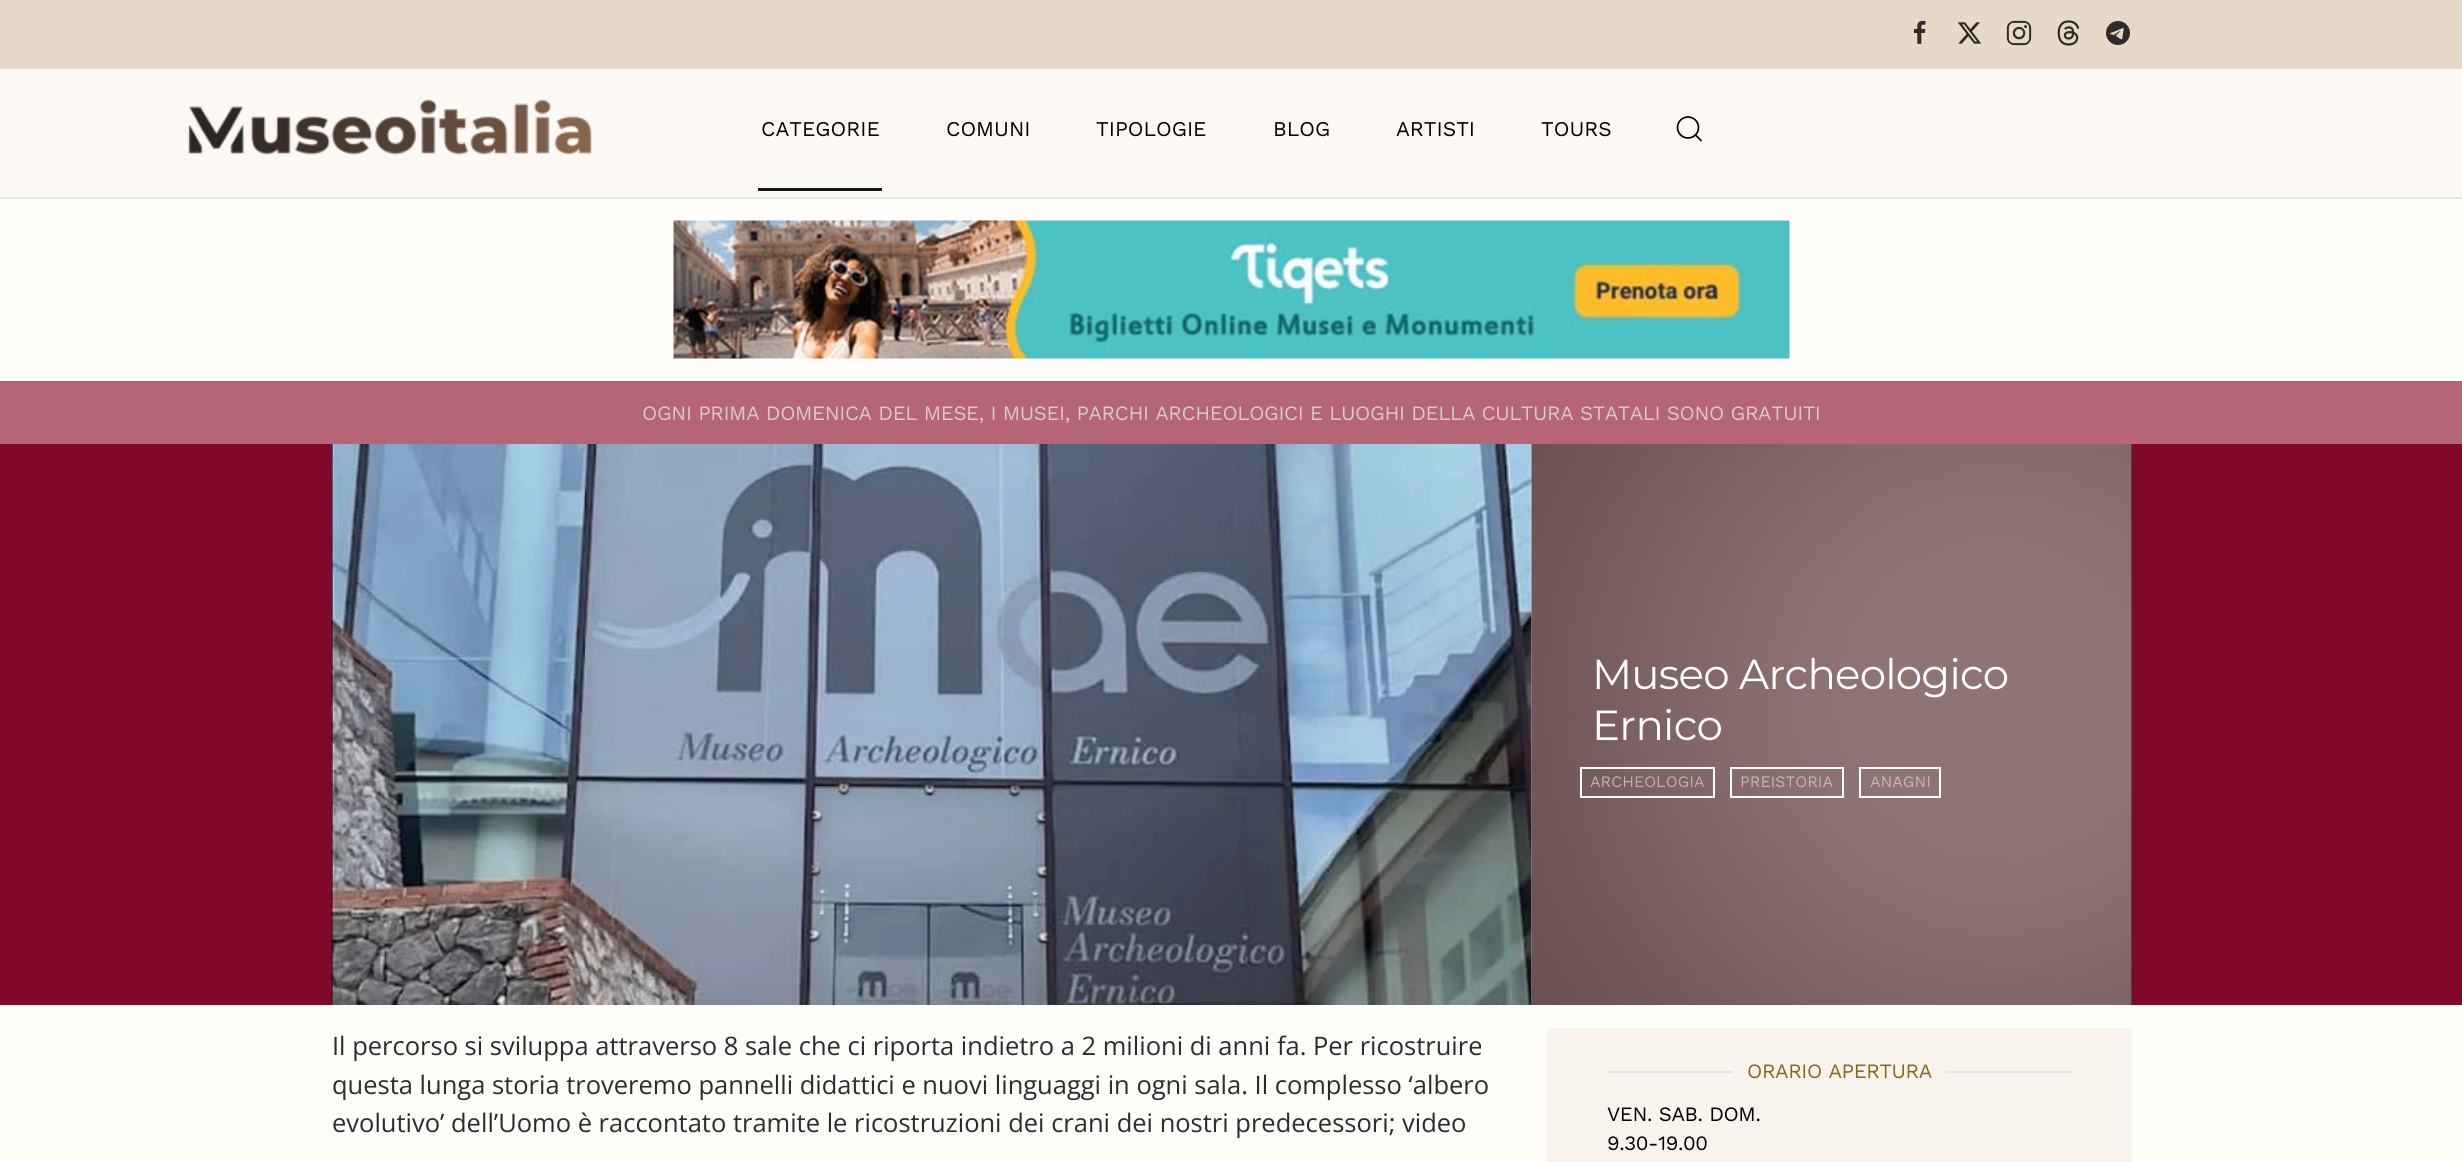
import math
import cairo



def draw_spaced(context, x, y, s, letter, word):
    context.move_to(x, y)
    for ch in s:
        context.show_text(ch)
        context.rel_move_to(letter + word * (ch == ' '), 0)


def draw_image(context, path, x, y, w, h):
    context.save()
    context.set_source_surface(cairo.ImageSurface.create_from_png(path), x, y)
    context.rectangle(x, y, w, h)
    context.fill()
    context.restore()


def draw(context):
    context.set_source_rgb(1, 253 / 255, 250 / 255)
    context.paint()
    context.set_source_rgb(231 / 255, 217 / 255, 199 / 255)
    context.rectangle(0, 0, 2462, 69)
    context.fill()
    draw_image(context, "images/1.png", 1913, 20, 13, 24)
    draw_image(context, "images/2.png", 1957, 22, 25, 22)
    draw_image(context, "images/3.png", 2006, 20, 26, 26)
    draw_image(context, "images/4.png", 2057, 20, 23, 26)
    draw_image(context, "images/5.png", 2106, 21, 24, 24)
    context.set_source_rgb(252 / 255, 249 / 255, 245 / 255)
    context.rectangle(0, 69, 2462, 128)
    context.fill()
    context.set_source_rgb(227 / 255, 227 / 255, 227 / 255)
    context.rectangle(0, 197, 2462, 2)
    context.fill()
    draw_image(context, "images/6.png", 188, 99, 404, 56)
    context.set_source_rgb(18 / 255, 19 / 255, 20 / 255)
    context.rectangle(758, 188, 124, 3)
    context.fill()
    context.arc(1688, 127.5, 10.5, 0, 2 * math.pi)
    context.set_source_rgb(0, 0, 0)
    context.set_line_width(1.7)
    context.stroke()
    context.new_path()
    context.move_to(1695.5, 135)
    context.line_to(1701.5, 141)
    context.close_path()
    context.stroke()
    draw_image(context, "images/7.png", 673, 220, 1117, 139)
    context.set_source_rgb(181 / 255, 101 / 255, 118 / 255)
    context.rectangle(0, 381, 2462, 63)
    context.fill()
    context.set_source_rgb(128 / 255, 8 / 255, 41 / 255)
    context.rectangle(0, 444, 2462, 561)
    context.fill()
    draw_image(context, "images/8.png", 331, 444, 1201, 561)
    context.set_source_rgb(46 / 255, 20 / 255, 21 / 255)
    context.rectangle(2131, 444, 1, 561)
    context.fill()
    draw_image(context, "images/9.png", 1531, 444, 601, 561)
    context.rectangle(1581, 768, 133, 29)
    context.set_source_rgb(1, 1, 250 / 255)
    context.set_line_width(2)
    context.stroke()
    context.rectangle(1731, 768, 112, 29)
    context.stroke()
    context.rectangle(1860, 768, 80, 29)
    context.stroke()
    context.set_source_rgb(248 / 255, 244 / 255, 237 / 255)
    context.rectangle(1547, 1028, 585, 134)
    context.fill()
    context.set_source_rgb(227 / 255, 227 / 255, 227 / 255)
    context.rectangle(1607, 1071, 126, 2)
    context.fill()
    context.rectangle(1946, 1071, 126, 2)
    context.fill()
    context.select_font_face("Work Sans")
    context.set_font_size(21)
    context.set_source_rgb(0, 0, 0)
    context.move_to(761, 136)
    context.show_text("CATEGORIE")
    context.move_to(946, 136)
    context.show_text("COMUNI")
    context.move_to(1096, 136)
    context.show_text("TIPOLOGIE")
    context.move_to(1273, 136)
    context.show_text("BLOG")
    context.move_to(1396, 136)
    context.show_text("ARTISTI")
    context.move_to(1541, 136)
    context.show_text("TOURS")
    context.set_font_size(20.4)
    context.set_source_rgb(214 / 255, 204 / 255, 194 / 255)
    draw_spaced(context, 642, 420, "OGNI PRIMA DOMENICA DEL MESE, I MUSEI, PARCHI ARCHEOLOGICI E LUOGHI DELLA CULTURA STATALI SONO GRATUITI", -0.37, 0)
    context.select_font_face("Montserrat")
    context.set_font_size(42)
    context.set_source_rgb(1, 1, 1)
    draw_spaced(context, 1592, 689, "Museo Archeologico", -0.75, 0)
    draw_spaced(context, 1592, 740, "Ernico", -0.75, 0)
    context.select_font_face("Work Sans")
    context.set_font_size(16)
    context.set_source_rgb(190 / 255, 176 / 255, 177 / 255)
    context.move_to(1590, 787)
    context.show_text("ARCHEOLOGIA")
    context.set_source_rgb(196 / 255, 182 / 255, 182 / 255)
    context.move_to(1740, 787)
    context.show_text("PREISTORIA")
    context.move_to(1870, 787)
    context.show_text("ANAGNI")
    context.select_font_face("Open Sans")
    context.set_font_size(25.5)
    context.set_source_rgb(44 / 255, 44 / 255, 44 / 255)
    context.move_to(332, 1055)
    context.show_text("Il percorso si sviluppa attraverso 8 sale che ci riporta indietro a 2 milioni di anni fa. Per ricostruire")
    context.move_to(332, 1094)
    context.show_text("questa lunga storia troveremo pannelli didattici e nuovi linguaggi in ogni sala. Il complesso ‘albero")
    context.move_to(332, 1132)
    context.show_text("evolutivo’ dell’Uomo è raccontato tramite le ricostruzioni dei crani dei nostri predecessori; video")
    context.select_font_face("Work Sans")
    context.set_font_size(20.4)
    context.set_source_rgb(135 / 255, 104 / 255, 25 / 255)
    draw_spaced(context, 1747, 1078, "ORARIO APERTURA", -0.37, 0)
    context.set_source_rgb(0, 0, 0)
    draw_spaced(context, 1607, 1121, "VEN. SAB. DOM.", -0.37, 0)
    draw_spaced(context, 1607, 1150, "9.30-19.00", -0.37, 0)


surface = cairo.ImageSurface(cairo.Format.RGB24, 2462, 1162)
context = cairo.Context(surface)
options = cairo.FontOptions()
options.set_hint_metrics(cairo.HintMetrics.OFF)
options.set_hint_style(cairo.HintStyle.NONE)
context.set_font_options(options)
context.set_miter_limit(4)
draw(context)
surface.write_to_png("out.png")
